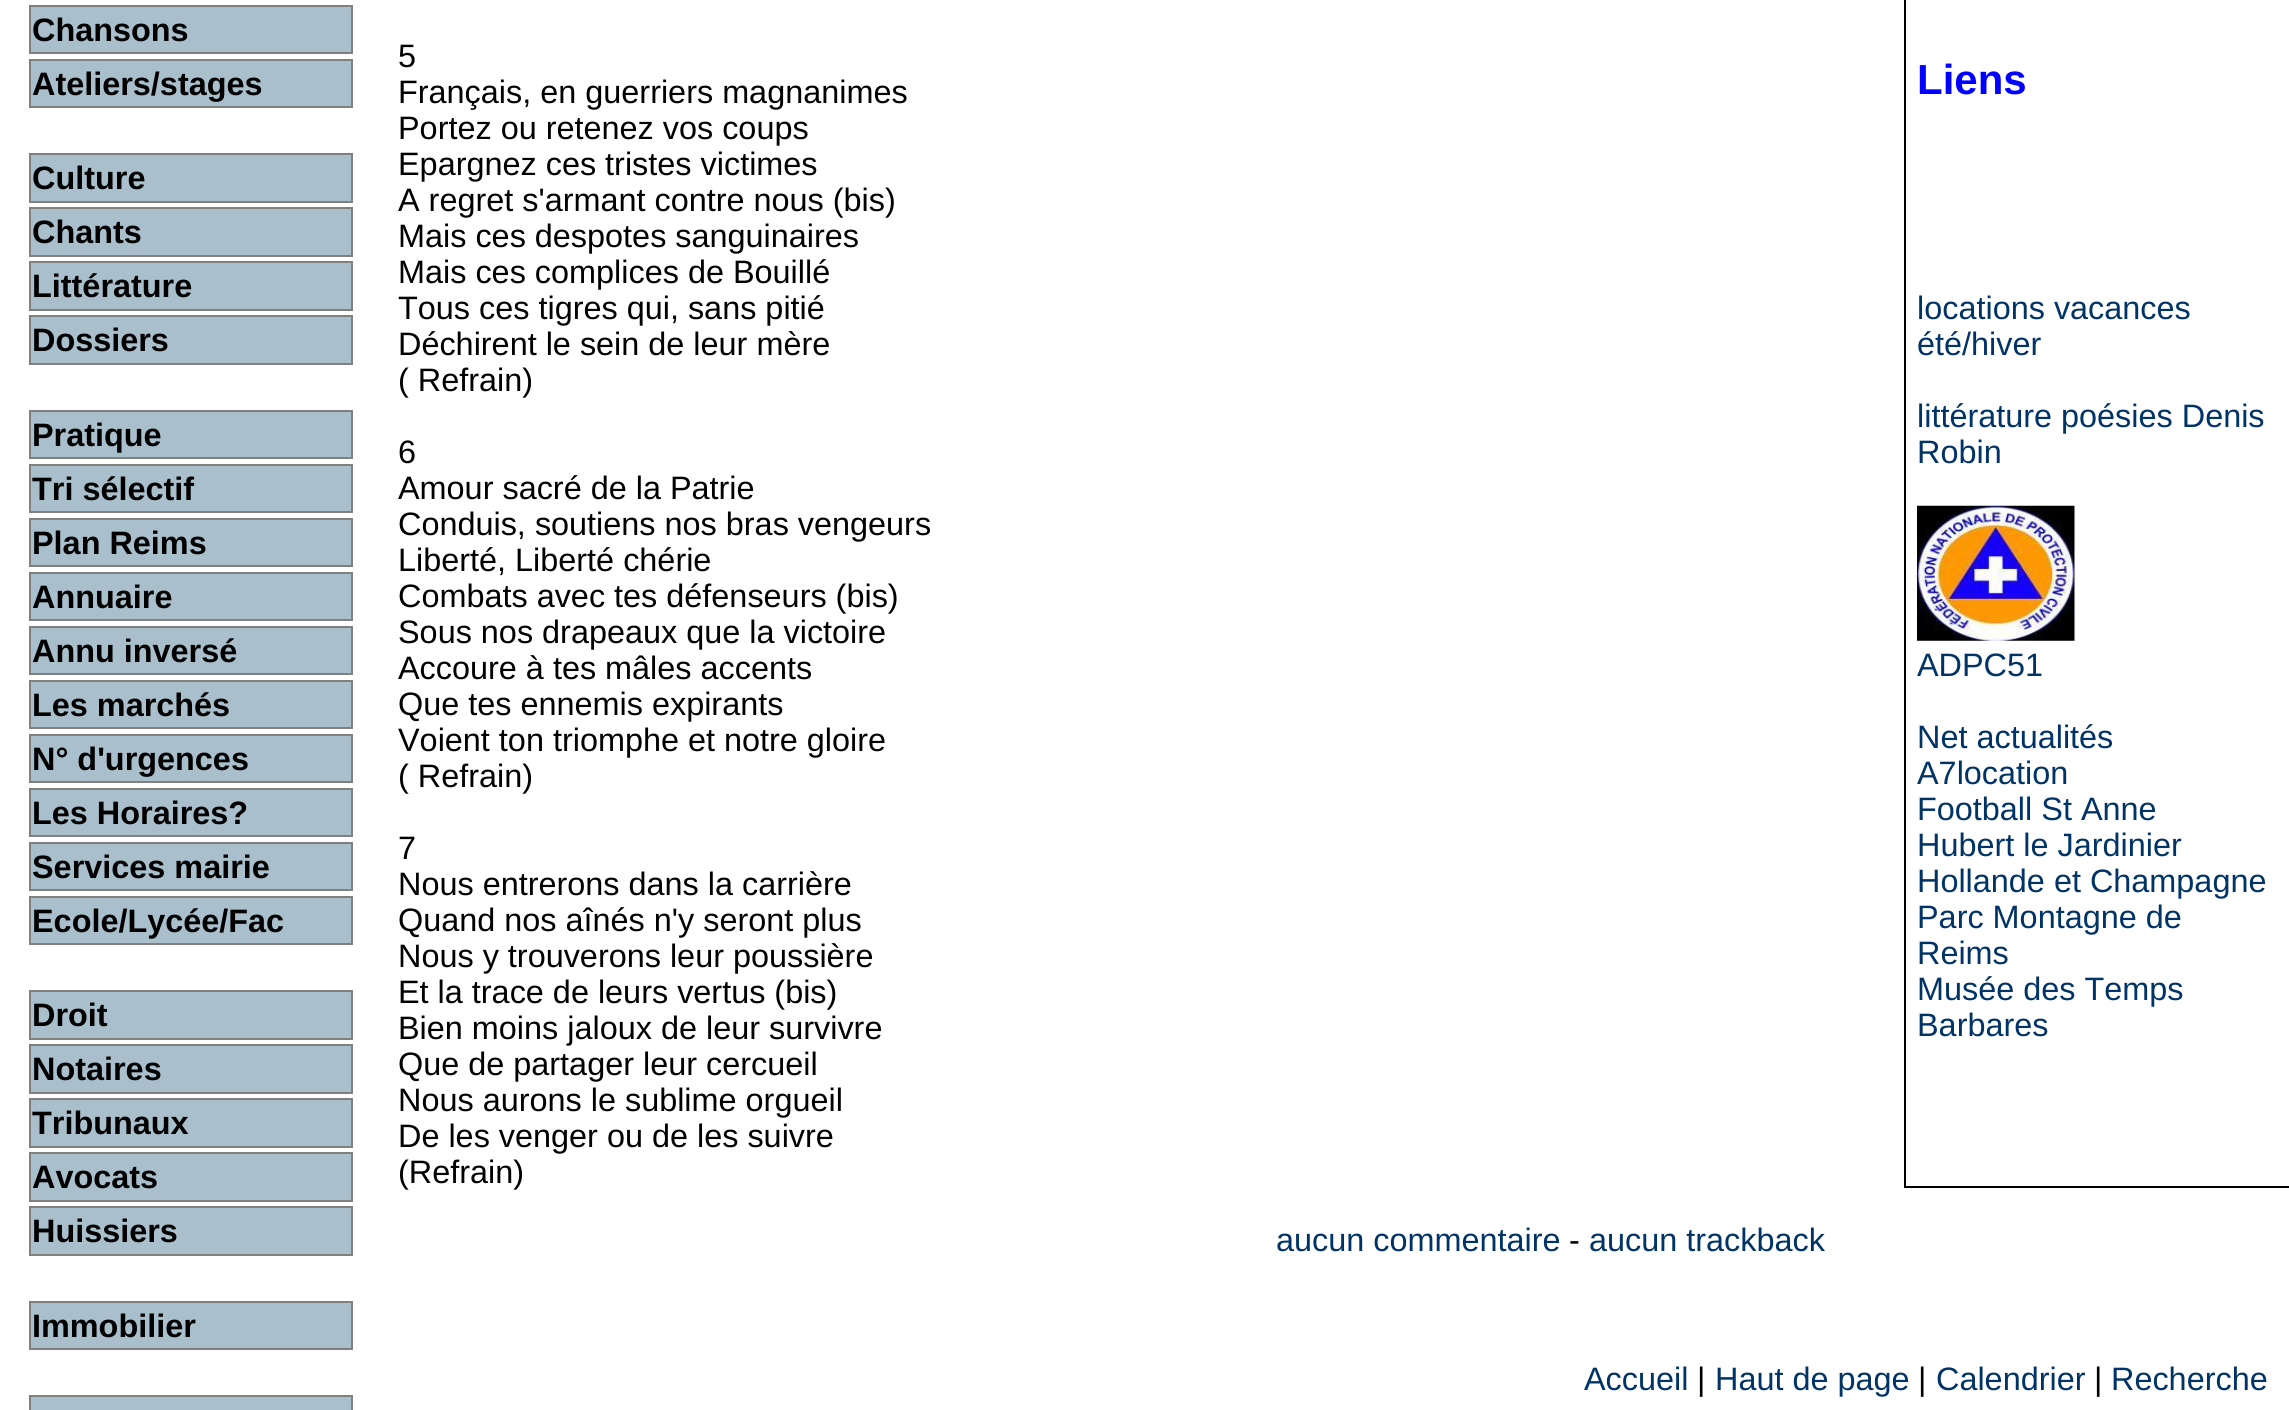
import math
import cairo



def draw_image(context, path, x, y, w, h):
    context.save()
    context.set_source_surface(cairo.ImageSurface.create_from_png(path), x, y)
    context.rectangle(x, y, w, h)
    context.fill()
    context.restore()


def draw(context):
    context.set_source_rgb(1, 1, 1)
    context.paint()
    context.set_source_rgb(169 / 255, 191 / 255, 203 / 255)
    context.rectangle(30, 6, 322, 47)
    context.fill_preserve()
    context.set_source_rgb(128 / 255, 128 / 255, 128 / 255)
    context.stroke()
    context.set_source_rgb(169 / 255, 191 / 255, 203 / 255)
    context.rectangle(30, 60, 322, 47)
    context.fill_preserve()
    context.set_source_rgb(128 / 255, 128 / 255, 128 / 255)
    context.stroke()
    context.set_source_rgb(169 / 255, 191 / 255, 203 / 255)
    context.rectangle(30, 154, 322, 48)
    context.fill_preserve()
    context.set_source_rgb(128 / 255, 128 / 255, 128 / 255)
    context.stroke()
    context.set_source_rgb(169 / 255, 191 / 255, 203 / 255)
    context.rectangle(30, 208, 322, 48)
    context.fill_preserve()
    context.set_source_rgb(128 / 255, 128 / 255, 128 / 255)
    context.stroke()
    context.set_source_rgb(169 / 255, 191 / 255, 203 / 255)
    context.rectangle(30, 262, 322, 48)
    context.fill_preserve()
    context.set_source_rgb(128 / 255, 128 / 255, 128 / 255)
    context.stroke()
    context.set_source_rgb(169 / 255, 191 / 255, 203 / 255)
    context.rectangle(30, 316, 322, 48)
    context.fill_preserve()
    context.set_source_rgb(128 / 255, 128 / 255, 128 / 255)
    context.stroke()
    context.set_source_rgb(169 / 255, 191 / 255, 203 / 255)
    context.rectangle(30, 411, 322, 47)
    context.fill_preserve()
    context.set_source_rgb(128 / 255, 128 / 255, 128 / 255)
    context.stroke()
    context.set_source_rgb(169 / 255, 191 / 255, 203 / 255)
    context.rectangle(30, 465, 322, 47)
    context.fill_preserve()
    context.set_source_rgb(128 / 255, 128 / 255, 128 / 255)
    context.stroke()
    context.set_source_rgb(169 / 255, 191 / 255, 203 / 255)
    context.rectangle(30, 519, 322, 47)
    context.fill_preserve()
    context.set_source_rgb(128 / 255, 128 / 255, 128 / 255)
    context.stroke()
    context.set_source_rgb(169 / 255, 191 / 255, 203 / 255)
    context.rectangle(30, 573, 322, 47)
    context.fill_preserve()
    context.set_source_rgb(128 / 255, 128 / 255, 128 / 255)
    context.stroke()
    context.set_source_rgb(169 / 255, 191 / 255, 203 / 255)
    context.rectangle(30, 627, 322, 47)
    context.fill_preserve()
    context.set_source_rgb(128 / 255, 128 / 255, 128 / 255)
    context.stroke()
    context.set_source_rgb(169 / 255, 191 / 255, 203 / 255)
    context.rectangle(30, 681, 322, 47)
    context.fill_preserve()
    context.set_source_rgb(128 / 255, 128 / 255, 128 / 255)
    context.stroke()
    context.set_source_rgb(169 / 255, 191 / 255, 203 / 255)
    context.rectangle(30, 735, 322, 47)
    context.fill_preserve()
    context.set_source_rgb(128 / 255, 128 / 255, 128 / 255)
    context.stroke()
    context.set_source_rgb(169 / 255, 191 / 255, 203 / 255)
    context.rectangle(30, 789, 322, 47)
    context.fill_preserve()
    context.set_source_rgb(128 / 255, 128 / 255, 128 / 255)
    context.stroke()
    context.set_source_rgb(169 / 255, 191 / 255, 203 / 255)
    context.rectangle(30, 843, 322, 47)
    context.fill_preserve()
    context.set_source_rgb(128 / 255, 128 / 255, 128 / 255)
    context.stroke()
    context.set_source_rgb(169 / 255, 191 / 255, 203 / 255)
    context.rectangle(30, 897, 322, 47)
    context.fill_preserve()
    context.set_source_rgb(128 / 255, 128 / 255, 128 / 255)
    context.stroke()
    context.set_source_rgb(169 / 255, 191 / 255, 203 / 255)
    context.rectangle(30, 991, 322, 48)
    context.fill_preserve()
    context.set_source_rgb(128 / 255, 128 / 255, 128 / 255)
    context.stroke()
    context.set_source_rgb(169 / 255, 191 / 255, 203 / 255)
    context.rectangle(30, 1045, 322, 48)
    context.fill_preserve()
    context.set_source_rgb(128 / 255, 128 / 255, 128 / 255)
    context.stroke()
    context.set_source_rgb(169 / 255, 191 / 255, 203 / 255)
    context.rectangle(30, 1099, 322, 48)
    context.fill_preserve()
    context.set_source_rgb(128 / 255, 128 / 255, 128 / 255)
    context.stroke()
    context.set_source_rgb(169 / 255, 191 / 255, 203 / 255)
    context.rectangle(30, 1153, 322, 48)
    context.fill_preserve()
    context.set_source_rgb(128 / 255, 128 / 255, 128 / 255)
    context.stroke()
    context.set_source_rgb(169 / 255, 191 / 255, 203 / 255)
    context.rectangle(30, 1207, 322, 48)
    context.fill_preserve()
    context.set_source_rgb(128 / 255, 128 / 255, 128 / 255)
    context.stroke()
    context.set_source_rgb(169 / 255, 191 / 255, 203 / 255)
    context.rectangle(30, 1302, 322, 47)
    context.fill_preserve()
    context.set_source_rgb(128 / 255, 128 / 255, 128 / 255)
    context.stroke()
    context.set_source_rgb(169 / 255, 191 / 255, 203 / 255)
    context.rectangle(30, 1396, 322, 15)
    context.fill_preserve()
    context.set_source_rgb(128 / 255, 128 / 255, 128 / 255)
    context.stroke()
    context.rectangle(1905, -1, 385, 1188)
    context.set_source_rgb(0, 0, 0)
    context.stroke()
    draw_image(context, "images/1.png", 1917, 505, 158, 136)
    context.select_font_face("Liberation Sans", cairo.FontSlant.NORMAL, cairo.FontWeight.BOLD)
    context.set_font_size(32.4)
    context.move_to(32, 41)
    context.show_text("Chansons")
    context.move_to(32, 95)
    context.show_text("Ateliers/stages")
    context.move_to(32, 189)
    context.show_text("Culture")
    context.move_to(32, 243)
    context.show_text("Chants")
    context.move_to(32, 297)
    context.show_text("Littérature")
    context.move_to(32, 351)
    context.show_text("Dossiers")
    context.move_to(32, 446)
    context.show_text("Pratique")
    context.move_to(32, 500)
    context.show_text("Tri sélectif")
    context.move_to(32, 554)
    context.show_text("Plan Reims")
    context.move_to(32, 608)
    context.show_text("Annuaire")
    context.move_to(32, 662)
    context.show_text("Annu inversé")
    context.move_to(32, 716)
    context.show_text("Les marchés")
    context.move_to(32, 770)
    context.show_text("N° d'urgences")
    context.move_to(32, 824)
    context.show_text("Les Horaires?")
    context.move_to(32, 878)
    context.show_text("Services mairie")
    context.move_to(32, 932)
    context.show_text("Ecole/Lycée/Fac")
    context.move_to(32, 1026)
    context.show_text("Droit")
    context.move_to(32, 1080)
    context.show_text("Notaires")
    context.move_to(32, 1134)
    context.show_text("Tribunaux")
    context.move_to(32, 1188)
    context.show_text("Avocats")
    context.move_to(32, 1242)
    context.show_text("Huissiers")
    context.move_to(32, 1337)
    context.show_text("Immobilier")
    context.select_font_face("Liberation Sans")
    context.move_to(398, 67)
    context.show_text("5")
    context.move_to(398, 103)
    context.show_text("Français, en guerriers magnanimes")
    context.move_to(398, 139)
    context.show_text("Portez ou retenez vos coups")
    context.move_to(398, 175)
    context.show_text("Epargnez ces tristes victimes")
    context.move_to(398, 211)
    context.show_text("A regret s'armant contre nous (bis)")
    context.move_to(398, 247)
    context.show_text("Mais ces despotes sanguinaires")
    context.move_to(398, 283)
    context.show_text("Mais ces complices de Bouillé")
    context.move_to(398, 319)
    context.show_text("Tous ces tigres qui, sans pitié")
    context.move_to(398, 355)
    context.show_text("Déchirent le sein de leur mère")
    context.move_to(398, 391)
    context.show_text("( Refrain)")
    context.move_to(398, 463)
    context.show_text("6")
    context.move_to(398, 499)
    context.show_text("Amour sacré de la Patrie")
    context.move_to(398, 535)
    context.show_text("Conduis, soutiens nos bras vengeurs")
    context.move_to(398, 571)
    context.show_text("Liberté, Liberté chérie")
    context.move_to(398, 607)
    context.show_text("Combats avec tes défenseurs (bis)")
    context.move_to(398, 643)
    context.show_text("Sous nos drapeaux que la victoire")
    context.move_to(398, 679)
    context.show_text("Accoure à tes mâles accents")
    context.move_to(398, 715)
    context.show_text("Que tes ennemis expirants")
    context.move_to(398, 751)
    context.show_text("Voient ton triomphe et notre gloire")
    context.move_to(398, 787)
    context.show_text("( Refrain)")
    context.move_to(398, 859)
    context.show_text("7")
    context.move_to(398, 895)
    context.show_text("Nous entrerons dans la carrière")
    context.move_to(398, 931)
    context.show_text("Quand nos aînés n'y seront plus")
    context.move_to(398, 967)
    context.show_text("Nous y trouverons leur poussière")
    context.move_to(398, 1003)
    context.show_text("Et la trace de leurs vertus (bis)")
    context.move_to(398, 1039)
    context.show_text("Bien moins jaloux de leur survivre")
    context.move_to(398, 1075)
    context.show_text("Que de partager leur cercueil")
    context.move_to(398, 1111)
    context.show_text("Nous aurons le sublime orgueil")
    context.move_to(398, 1147)
    context.show_text("De les venger ou de les suivre")
    context.move_to(398, 1183)
    context.show_text("(Refrain)")
    context.set_source_rgb(0, 51 / 255, 102 / 255)
    context.move_to(1276, 1251)
    context.show_text("aucun commentaire")
    context.set_source_rgb(0, 0, 0)
    context.move_to(1569, 1251)
    context.show_text("-")
    context.set_source_rgb(0, 51 / 255, 102 / 255)
    context.move_to(1589, 1251)
    context.show_text("aucun trackback")
    context.select_font_face("Liberation Sans", cairo.FontSlant.NORMAL, cairo.FontWeight.BOLD)
    context.set_font_size(42)
    context.set_source_rgb(0, 0, 1)
    context.move_to(1917, 94)
    context.show_text("Liens")
    context.select_font_face("Liberation Sans")
    context.set_font_size(32.4)
    context.set_source_rgb(0, 51 / 255, 102 / 255)
    context.move_to(1917, 319)
    context.show_text("locations vacances")
    context.move_to(1917, 355)
    context.show_text("été/hiver")
    context.move_to(1917, 427)
    context.show_text("littérature poésies Denis")
    context.move_to(1917, 463)
    context.show_text("Robin")
    context.move_to(1917, 676)
    context.show_text("ADPC51")
    context.move_to(1917, 748)
    context.show_text("Net actualités")
    context.move_to(1917, 784)
    context.show_text("A7location")
    context.move_to(1917, 820)
    context.show_text("Football St Anne")
    context.move_to(1917, 856)
    context.show_text("Hubert le Jardinier")
    context.move_to(1917, 892)
    context.show_text("Hollande et Champagne")
    context.move_to(1917, 928)
    context.show_text("Parc Montagne de")
    context.move_to(1917, 964)
    context.show_text("Reims")
    context.move_to(1917, 1000)
    context.show_text("Musée des Temps")
    context.move_to(1917, 1036)
    context.show_text("Barbares")
    context.move_to(1584, 1390)
    context.show_text("Accueil")
    context.set_source_rgb(0, 0, 0)
    context.move_to(1697, 1390)
    context.show_text("|")
    context.set_source_rgb(0, 51 / 255, 102 / 255)
    context.move_to(1715, 1390)
    context.show_text("Haut de page")
    context.set_source_rgb(0, 0, 0)
    context.move_to(1918, 1390)
    context.show_text("|")
    context.set_source_rgb(0, 51 / 255, 102 / 255)
    context.move_to(1936, 1390)
    context.show_text("Calendrier")
    context.set_source_rgb(0, 0, 0)
    context.move_to(2094, 1390)
    context.show_text("|")
    context.set_source_rgb(0, 51 / 255, 102 / 255)
    context.move_to(2111, 1390)
    context.show_text("Recherche")


surface = cairo.ImageSurface(cairo.Format.RGB24, 2289, 1410)
context = cairo.Context(surface)
options = cairo.FontOptions()
options.set_hint_metrics(cairo.HintMetrics.OFF)
options.set_hint_style(cairo.HintStyle.NONE)
context.set_font_options(options)
context.set_miter_limit(4)
draw(context)
surface.write_to_png("out.png")
